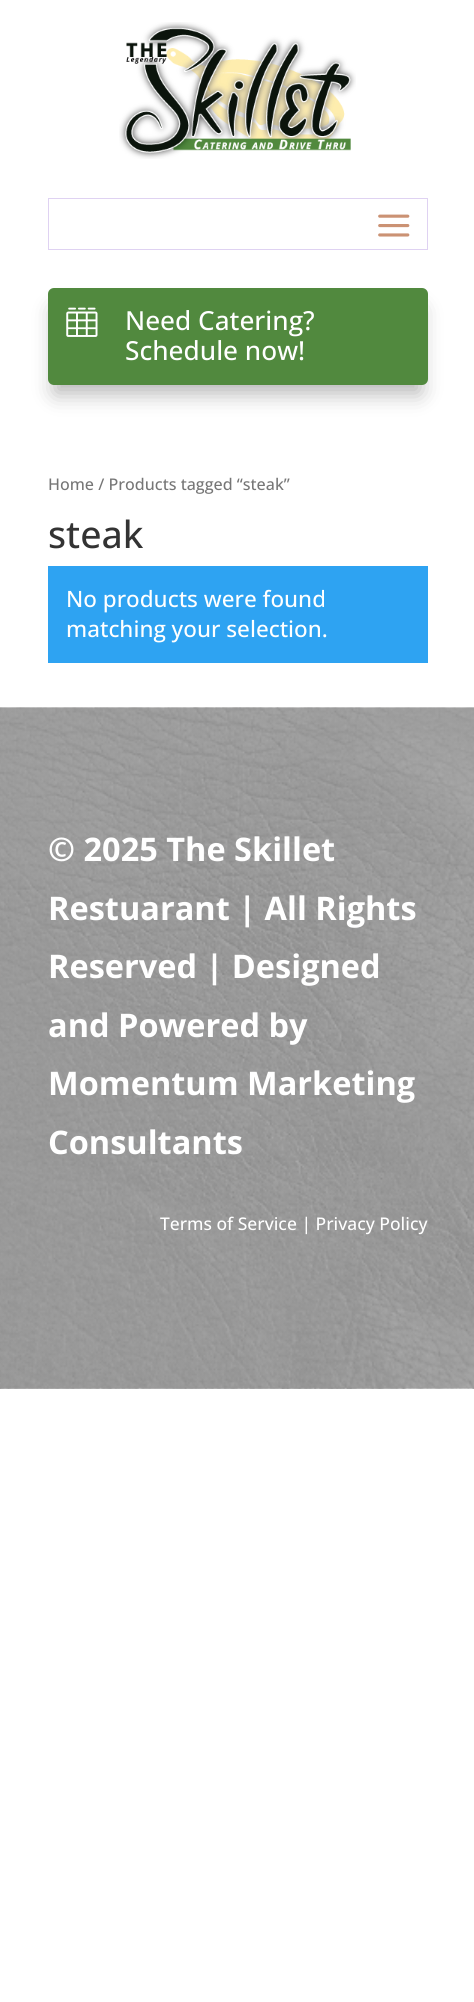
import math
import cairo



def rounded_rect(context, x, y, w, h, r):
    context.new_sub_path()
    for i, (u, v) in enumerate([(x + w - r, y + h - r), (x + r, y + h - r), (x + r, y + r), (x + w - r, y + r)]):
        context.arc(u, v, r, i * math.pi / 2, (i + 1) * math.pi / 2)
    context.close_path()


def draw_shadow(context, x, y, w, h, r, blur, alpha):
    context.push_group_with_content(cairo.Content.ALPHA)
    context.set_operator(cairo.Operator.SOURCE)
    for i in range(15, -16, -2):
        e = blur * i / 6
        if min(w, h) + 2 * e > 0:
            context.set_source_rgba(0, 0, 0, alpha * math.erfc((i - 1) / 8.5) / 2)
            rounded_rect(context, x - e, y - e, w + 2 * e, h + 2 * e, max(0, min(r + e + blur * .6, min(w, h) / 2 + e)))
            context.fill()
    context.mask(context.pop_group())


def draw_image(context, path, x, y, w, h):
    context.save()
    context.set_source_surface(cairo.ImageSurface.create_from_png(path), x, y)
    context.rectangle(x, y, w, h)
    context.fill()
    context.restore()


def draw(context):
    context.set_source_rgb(1, 1, 1)
    context.paint()
    draw_image(context, "images/1.png", 119, 22, 237, 137)
    context.rectangle(48.5, 198.5, 379, 51)
    context.set_source_rgb(223 / 255, 210 / 255, 242 / 255)
    context.set_line_width(1)
    context.stroke()
    draw_image(context, "images/2.png", 378, 214, 32, 23)
    context.set_source_rgb(0, 0, 0)
    draw_shadow(context, 55, 310, 365, 83, 0, 11, 0.3)
    context.set_source_rgb(81 / 255, 137 / 255, 62 / 255)
    rounded_rect(context, 48, 288, 380, 97, 6)
    context.fill()
    draw_image(context, "images/3.png", 66, 307, 32, 30)
    context.set_source_rgb(46 / 255, 163 / 255, 242 / 255)
    context.rectangle(48, 566, 380, 97)
    context.fill()
    draw_image(context, "images/4.png", 0, 707, 474, 682)
    context.select_font_face("Open Sans Medium")
    context.set_font_size(26.25)
    context.set_source_rgb(1, 1, 1)
    context.move_to(125, 330)
    context.show_text("Need Catering?")
    context.move_to(125, 360)
    context.show_text("Schedule now!")
    context.set_font_size(16.1)
    context.set_source_rgb(118 / 255, 118 / 255, 118 / 255)
    context.move_to(48, 490)
    context.show_text("Home / Products tagged “steak”")
    context.set_font_size(37.5)
    context.set_source_rgb(51 / 255, 51 / 255, 51 / 255)
    context.move_to(48, 548)
    context.show_text("steak")
    context.set_font_size(22.5)
    context.set_source_rgb(1, 1, 1)
    context.move_to(66, 607)
    context.show_text("No products were found")
    context.move_to(66, 637)
    context.show_text("matching your selection.")
    context.select_font_face("Open Sans", cairo.FontSlant.NORMAL, cairo.FontWeight.BOLD)
    context.set_font_size(32.5)
    context.move_to(48, 861)
    context.show_text("© 2025 The Skillet")
    context.move_to(48, 920)
    context.show_text("Restuarant | All Rights")
    context.move_to(48, 978)
    context.show_text("Reserved | Designed")
    context.move_to(48, 1037)
    context.show_text("and Powered by")
    context.move_to(48, 1095)
    context.show_text("Momentum Marketing")
    context.move_to(48, 1154)
    context.show_text("Consultants")
    context.select_font_face("Open Sans Medium")
    context.set_font_size(17.5)
    context.move_to(160, 1230)
    context.show_text("Terms of Service | Privacy Policy")


surface = cairo.ImageSurface(cairo.Format.RGB24, 474, 2002)
context = cairo.Context(surface)
options = cairo.FontOptions()
options.set_hint_metrics(cairo.HintMetrics.OFF)
options.set_hint_style(cairo.HintStyle.NONE)
context.set_font_options(options)
context.set_miter_limit(4)
draw(context)
surface.write_to_png("out.png")
